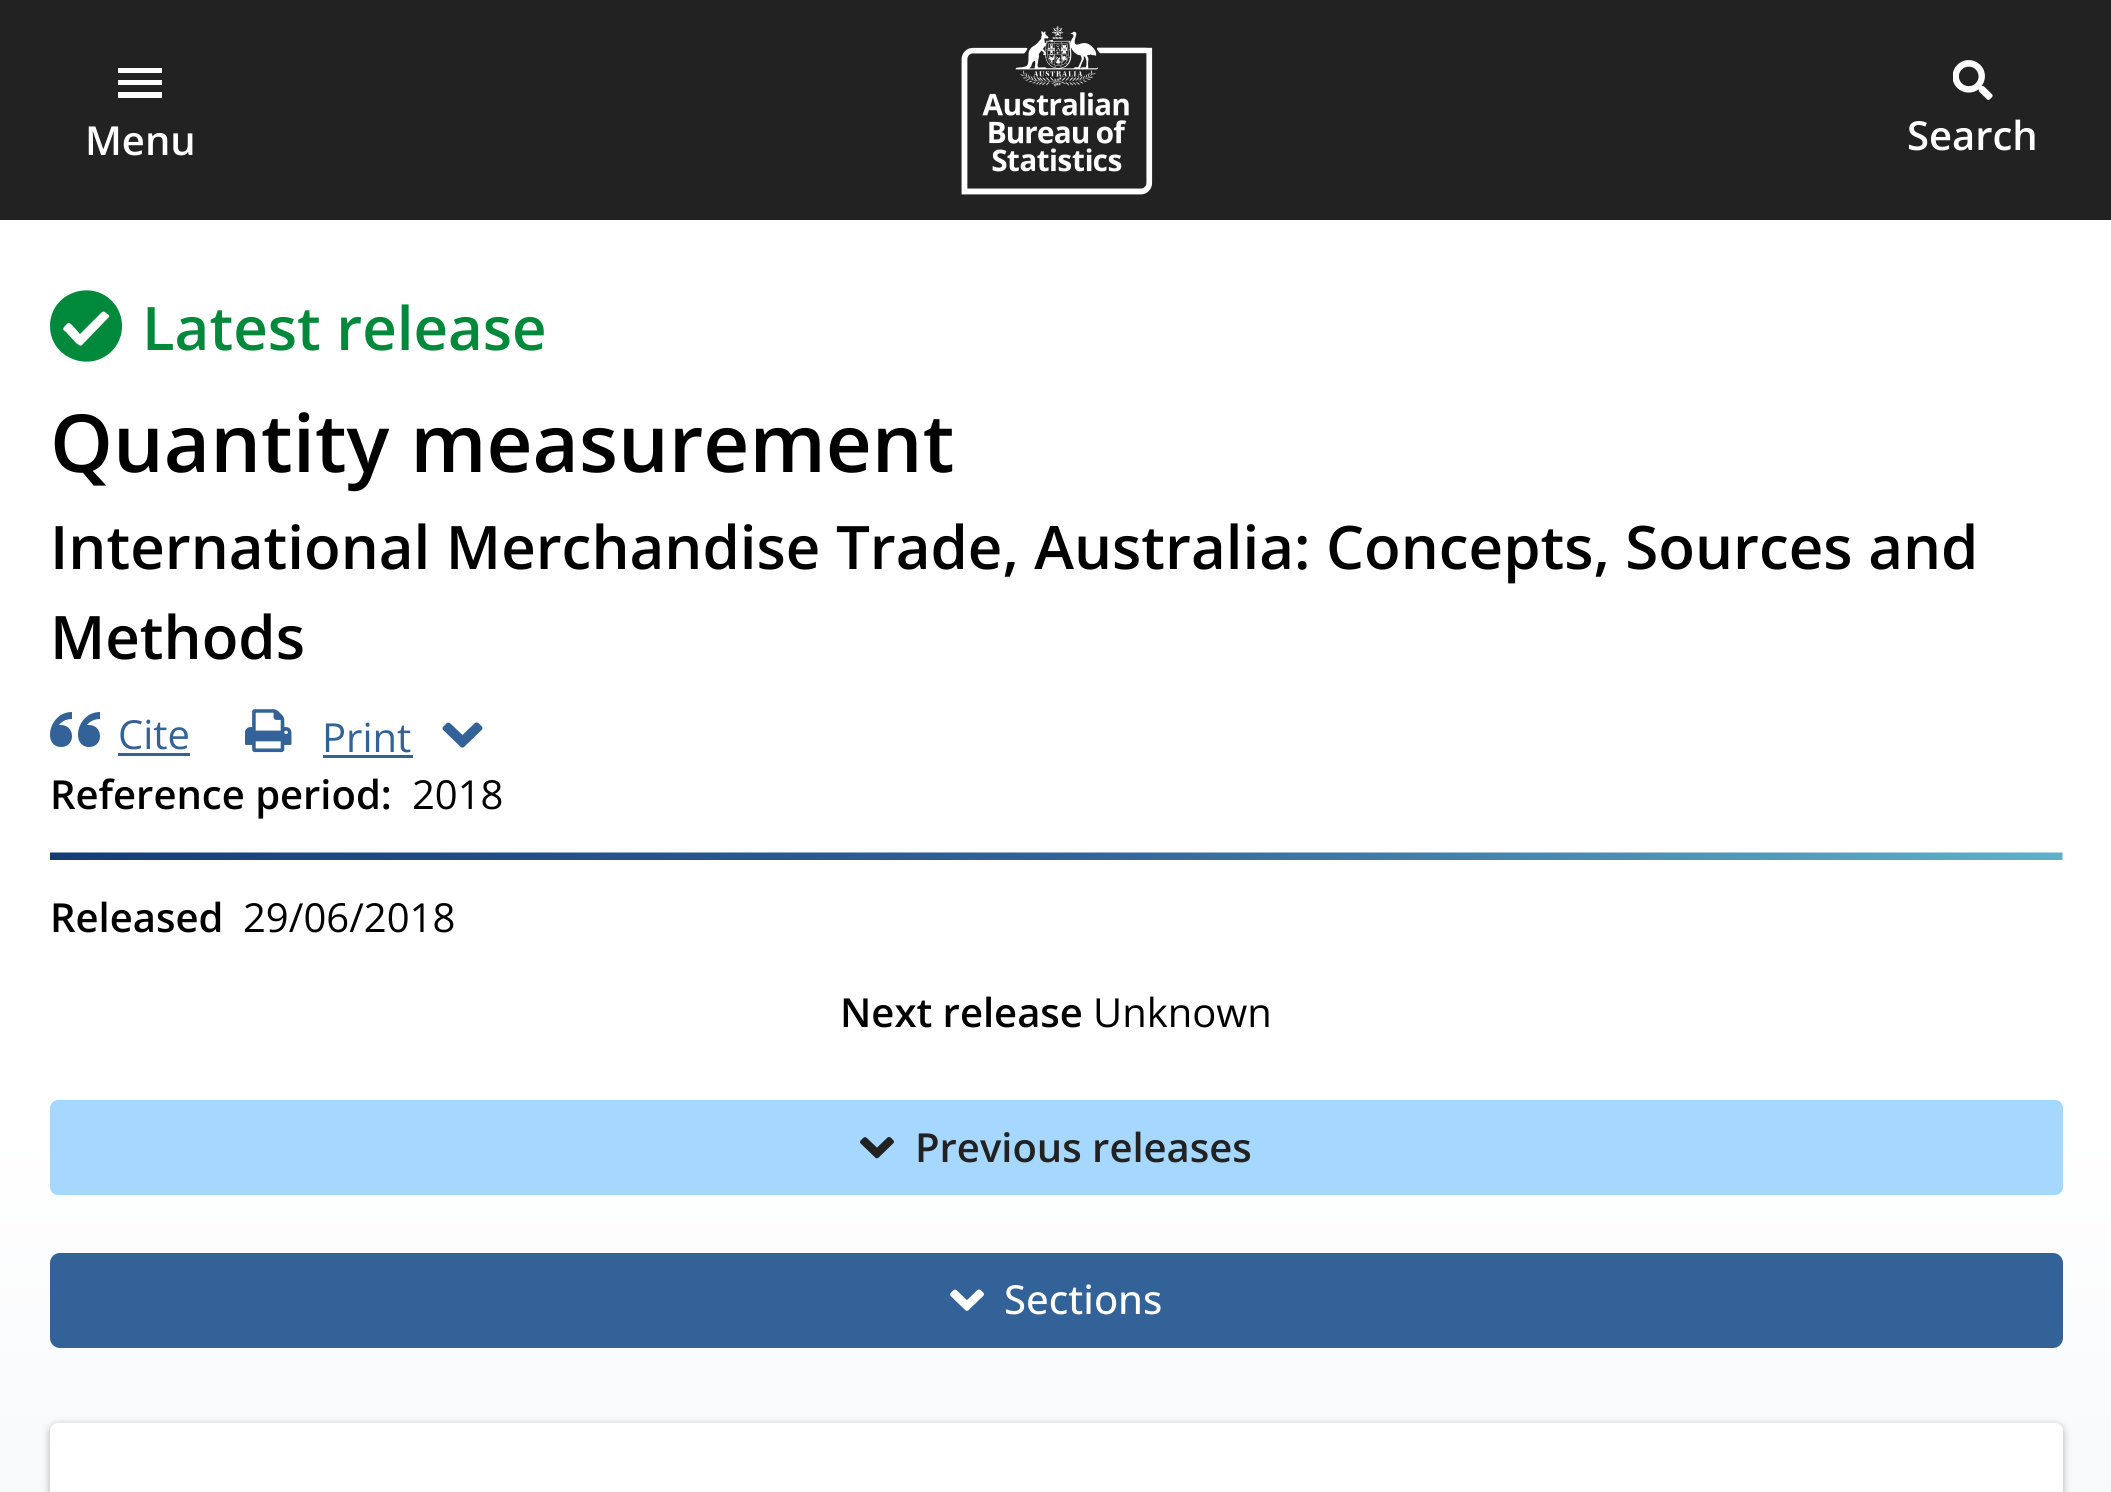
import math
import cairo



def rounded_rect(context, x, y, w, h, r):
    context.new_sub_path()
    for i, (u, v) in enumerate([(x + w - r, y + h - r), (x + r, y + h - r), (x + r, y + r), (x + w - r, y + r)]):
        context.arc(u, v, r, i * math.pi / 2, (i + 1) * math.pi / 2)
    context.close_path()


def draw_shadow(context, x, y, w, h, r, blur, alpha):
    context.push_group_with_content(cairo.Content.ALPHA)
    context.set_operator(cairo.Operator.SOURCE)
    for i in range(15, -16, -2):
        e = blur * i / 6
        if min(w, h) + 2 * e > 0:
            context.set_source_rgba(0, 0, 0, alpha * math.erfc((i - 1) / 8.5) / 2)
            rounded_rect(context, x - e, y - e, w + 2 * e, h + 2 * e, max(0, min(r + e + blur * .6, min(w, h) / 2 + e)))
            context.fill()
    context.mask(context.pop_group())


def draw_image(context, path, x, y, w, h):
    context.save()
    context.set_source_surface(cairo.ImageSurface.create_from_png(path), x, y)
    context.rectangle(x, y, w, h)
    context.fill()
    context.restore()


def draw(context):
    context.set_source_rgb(34 / 255, 34 / 255, 34 / 255)
    context.paint()
    context.set_source_rgb(1, 1, 1)
    context.new_path()
    context.move_to(118, 68)
    context.line_to(162, 68)
    context.line_to(162, 73)
    context.line_to(118, 73)
    context.close_path()
    context.move_to(118, 85)
    context.line_to(118, 80)
    context.line_to(162, 80)
    context.line_to(162, 85)
    context.close_path()
    context.move_to(118, 98)
    context.line_to(118, 92)
    context.line_to(162, 92)
    context.line_to(162, 98)
    context.close_path()
    context.fill()
    draw_image(context, "images/1.png", 961, 25, 192, 170)
    draw_image(context, "images/2.png", 1953, 60, 40, 40)
    gradient = cairo.LinearGradient(1056, 220, 1056, 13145)
    gradient.add_color_stop_rgba(0.07, 1, 1, 1, 1)
    gradient.add_color_stop_rgba(0.12, 242 / 255, 245 / 255, 248 / 255, 1)
    context.set_source(gradient)
    context.rectangle(0, 220, 2111, 1272)
    context.fill()
    context.set_source_rgb(0, 137 / 255, 59 / 255)
    context.new_path()
    context.move_to(122, 326)
    context.curve_to(122, 333, 120, 340, 116, 346)
    context.curve_to(96, 375, 50, 361, 50, 326)
    context.curve_to(50, 291, 96, 277, 116, 306)
    context.curve_to(120, 312, 122, 319, 122, 326)
    context.close_path()
    context.move_to(82, 345)
    context.line_to(108, 318)
    context.curve_to(111, 316, 108, 314, 106, 313)
    context.curve_to(103, 310, 102, 312, 98, 316)
    context.line_to(80, 334)
    context.curve_to(78, 332, 71, 323, 69, 323)
    context.curve_to(67, 323, 66, 325, 65, 326)
    context.curve_to(62, 329, 63, 330, 66, 332)
    context.line_to(76, 343)
    context.curve_to(78, 344, 80, 347, 82, 345)
    context.close_path()
    context.fill()
    context.set_source_rgb(50 / 255, 98 / 255, 151 / 255)
    context.new_path()
    context.move_to(61, 725)
    context.curve_to(75, 725, 76, 746, 62, 747)
    context.curve_to(42, 748, 48, 712, 72, 712)
    context.line_to(72, 719)
    context.curve_to(67, 719, 62, 721, 59, 725)
    context.close_path()
    context.move_to(89, 725)
    context.curve_to(103, 725, 104, 746, 90, 747)
    context.curve_to(70, 748, 76, 712, 100, 712)
    context.line_to(100, 719)
    context.curve_to(95, 719, 90, 721, 87, 725)
    context.close_path()
    context.fill()
    context.rectangle(118, 753, 72, 3)
    context.fill()
    draw_image(context, "images/3.png", 245, 709, 47, 44)
    context.rectangle(323, 755, 90, 3)
    context.fill()
    draw_image(context, "images/4.png", 442, 722, 41, 26)
    draw_image(context, "images/5.png", 50, 852, 2013, 8)
    context.set_source_rgb(166 / 255, 216 / 255, 1)
    rounded_rect(context, 50, 1100, 2013, 95, 8)
    context.fill()
    draw_image(context, "images/6.png", 860, 1137, 34, 22)
    context.set_source_rgb(50 / 255, 98 / 255, 151 / 255)
    rounded_rect(context, 50, 1253, 2013, 95, 10)
    context.fill()
    draw_image(context, "images/7.png", 950, 1289, 34, 22)
    context.set_source_rgb(0, 0, 0)
    draw_shadow(context, 50, 1425, 2013, 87, 8, 4, 0.3)
    context.set_source_rgb(1, 1, 1)
    rounded_rect(context, 50, 1423, 2013, 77, 8)
    context.fill()
    context.select_font_face("Open Sans SemiBold")
    context.set_font_size(40)
    context.move_to(85, 155)
    context.show_text("Menu")
    context.move_to(1907, 150)
    context.show_text("Search")
    context.set_font_size(60)
    context.set_source_rgb(0, 137 / 255, 59 / 255)
    context.move_to(142, 350)
    context.show_text("Latest release")
    context.set_font_size(80)
    context.set_source_rgb(0, 0, 0)
    context.move_to(50, 472)
    context.show_text("Quantity measurement")
    context.set_font_size(60)
    context.move_to(50, 569)
    context.show_text("International Merchandise Trade, Australia: Concepts, Sources and")
    context.move_to(50, 659)
    context.show_text("Methods")
    context.select_font_face("Open Sans")
    context.set_font_size(40)
    context.set_source_rgb(50 / 255, 98 / 255, 151 / 255)
    context.move_to(118, 749)
    context.show_text("Cite")
    context.move_to(322, 752)
    context.show_text("Print")
    context.select_font_face("Open Sans SemiBold")
    context.set_source_rgb(0, 0, 0)
    context.move_to(50, 809)
    context.show_text("Reference period:")
    context.select_font_face("Open Sans")
    context.move_to(412, 809)
    context.show_text("2018")
    context.select_font_face("Open Sans SemiBold")
    context.move_to(50, 932)
    context.show_text("Released")
    context.select_font_face("Open Sans")
    context.move_to(243, 932)
    context.show_text("29/06/2018")
    context.select_font_face("Open Sans SemiBold")
    context.move_to(840, 1027)
    context.show_text("Next release")
    context.select_font_face("Open Sans")
    context.move_to(1093, 1027)
    context.show_text("Unknown")
    context.select_font_face("Open Sans SemiBold")
    context.set_source_rgb(34 / 255, 34 / 255, 34 / 255)
    context.move_to(915, 1162)
    context.show_text("Previous releases")
    context.select_font_face("Open Sans Medium")
    context.set_source_rgb(1, 1, 1)
    context.move_to(1004, 1314)
    context.show_text("Sections")


surface = cairo.ImageSurface(cairo.Format.RGB24, 2111, 1492)
context = cairo.Context(surface)
options = cairo.FontOptions()
options.set_hint_metrics(cairo.HintMetrics.OFF)
options.set_hint_style(cairo.HintStyle.NONE)
context.set_font_options(options)
context.set_miter_limit(4)
draw(context)
surface.write_to_png("out.png")
